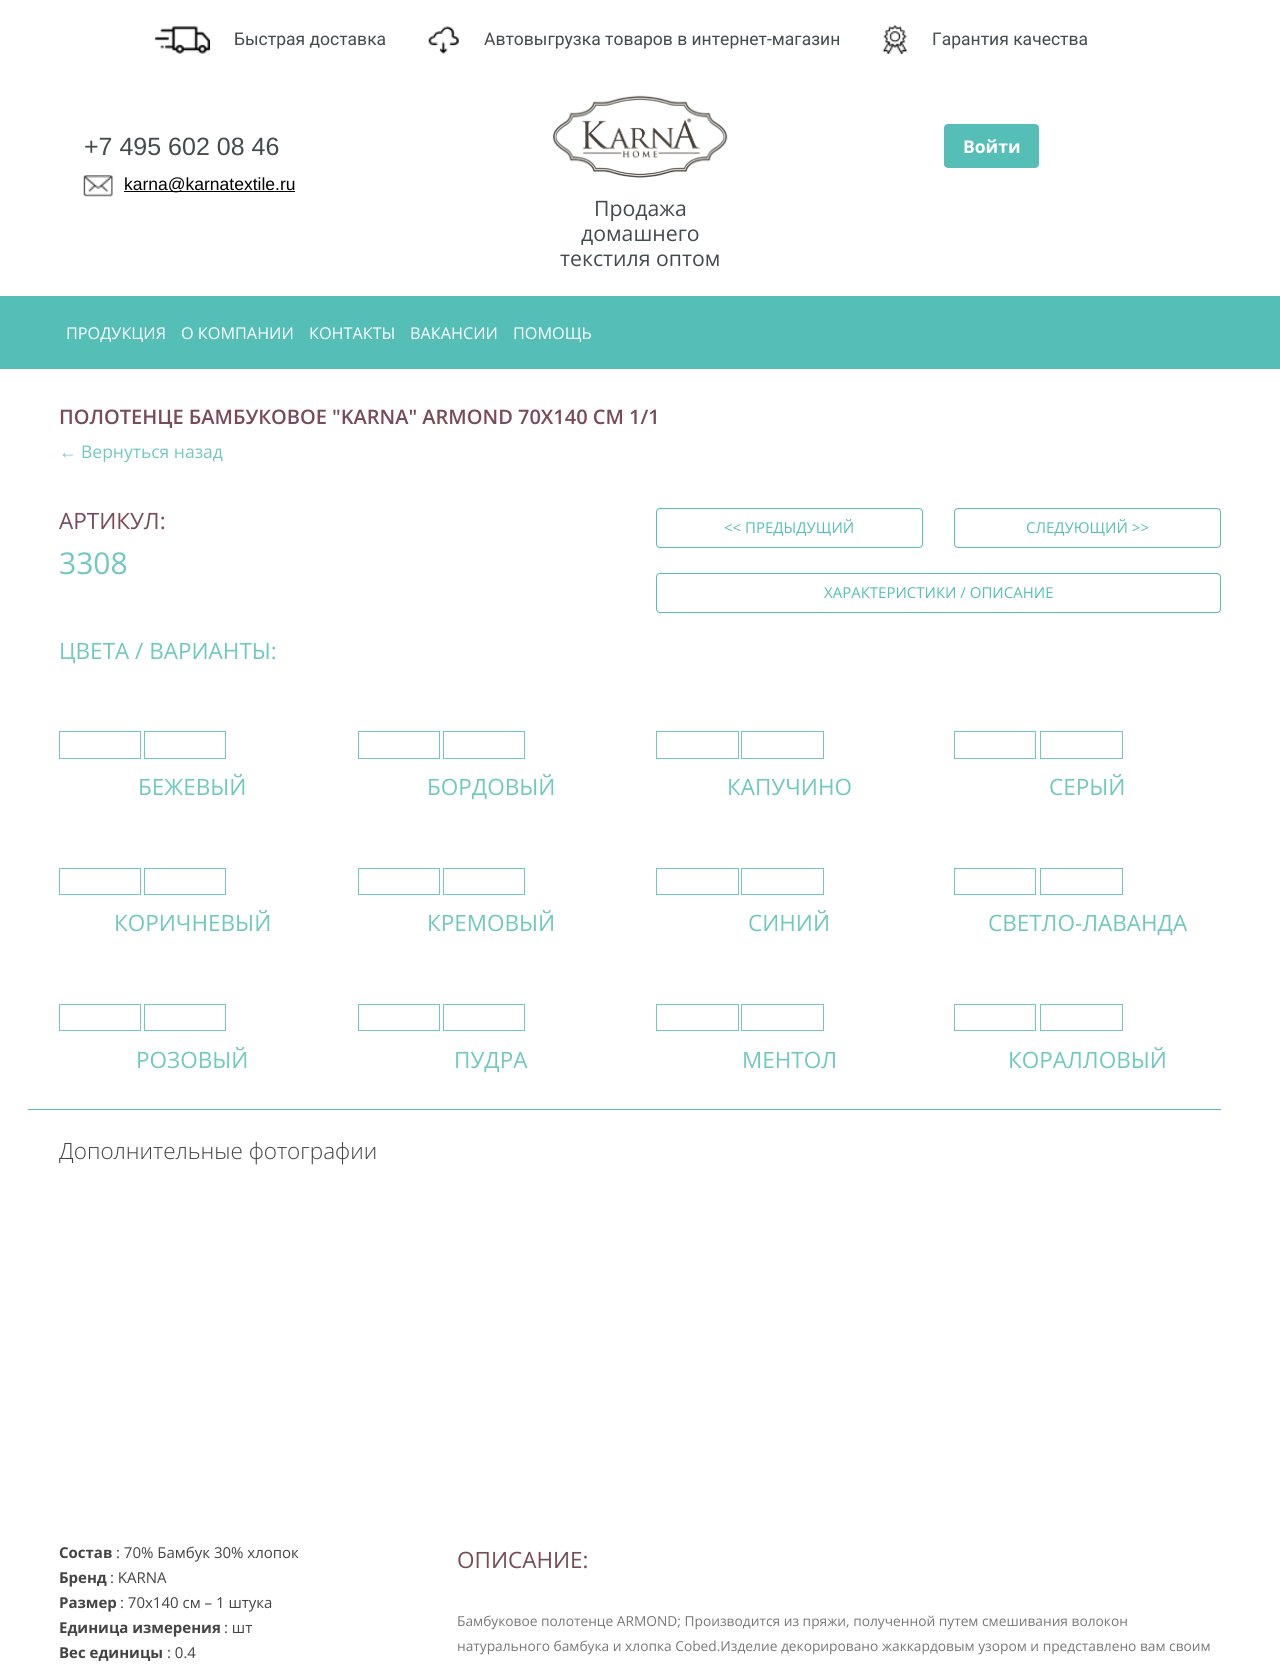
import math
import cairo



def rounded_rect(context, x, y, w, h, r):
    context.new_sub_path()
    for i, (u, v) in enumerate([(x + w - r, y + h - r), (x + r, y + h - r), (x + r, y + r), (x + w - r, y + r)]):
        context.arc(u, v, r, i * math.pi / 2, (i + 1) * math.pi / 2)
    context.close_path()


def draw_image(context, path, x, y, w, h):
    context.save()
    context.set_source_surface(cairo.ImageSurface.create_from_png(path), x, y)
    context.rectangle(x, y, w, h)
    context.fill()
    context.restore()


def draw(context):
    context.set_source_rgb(1, 1, 1)
    context.paint()
    draw_image(context, "images/1.png", 155, 26, 55, 28)
    draw_image(context, "images/2.png", 428, 26, 31, 28)
    draw_image(context, "images/3.png", 882, 25, 26, 30)
    draw_image(context, "images/4.png", 83, 175, 30, 22)
    context.set_source_rgb(0, 0, 0)
    context.rectangle(124, 191, 171, 1)
    context.fill()
    context.set_source_rgb(85 / 255, 191 / 255, 183 / 255)
    rounded_rect(context, 944, 124, 95, 44, 4)
    context.fill()
    draw_image(context, "images/5.png", 552, 95, 176, 83)
    context.rectangle(0, 296, 1280, 73)
    context.fill()
    rounded_rect(context, 656.5, 508.5, 266, 39, 3.5)
    context.set_line_width(1)
    context.stroke()
    rounded_rect(context, 954.5, 508.5, 266, 39, 3.5)
    context.stroke()
    rounded_rect(context, 656.5, 573.5, 564, 39, 3.5)
    context.stroke()
    context.rectangle(59.5, 731.5, 81, 27)
    context.set_source_rgb(112 / 255, 200 / 255, 193 / 255)
    context.stroke()
    context.rectangle(144.5, 731.5, 81, 27)
    context.stroke()
    context.rectangle(358.5, 731.5, 81, 27)
    context.stroke()
    context.rectangle(443.5, 731.5, 81, 27)
    context.stroke()
    context.rectangle(656.5, 731.5, 82, 27)
    context.stroke()
    context.rectangle(741.5, 731.5, 82, 27)
    context.stroke()
    context.rectangle(954.5, 731.5, 81, 27)
    context.stroke()
    context.rectangle(1040.5, 731.5, 82, 27)
    context.stroke()
    context.rectangle(59.5, 868.5, 81, 26)
    context.stroke()
    context.rectangle(144.5, 868.5, 81, 26)
    context.stroke()
    context.rectangle(358.5, 868.5, 81, 26)
    context.stroke()
    context.rectangle(443.5, 868.5, 81, 26)
    context.stroke()
    context.rectangle(656.5, 868.5, 82, 26)
    context.stroke()
    context.rectangle(741.5, 868.5, 82, 26)
    context.stroke()
    context.rectangle(954.5, 868.5, 81, 26)
    context.stroke()
    context.rectangle(1040.5, 868.5, 82, 26)
    context.stroke()
    context.rectangle(59.5, 1004.5, 81, 26)
    context.stroke()
    context.rectangle(144.5, 1004.5, 81, 26)
    context.stroke()
    context.rectangle(358.5, 1004.5, 81, 26)
    context.stroke()
    context.rectangle(443.5, 1004.5, 81, 26)
    context.stroke()
    context.rectangle(656.5, 1004.5, 82, 26)
    context.stroke()
    context.rectangle(741.5, 1004.5, 82, 26)
    context.stroke()
    context.rectangle(954.5, 1004.5, 81, 26)
    context.stroke()
    context.rectangle(1040.5, 1004.5, 82, 26)
    context.stroke()
    context.set_source_rgb(85 / 255, 191 / 255, 183 / 255)
    context.rectangle(28, 1109, 1193, 1)
    context.fill()
    context.select_font_face("Roboto")
    context.set_font_size(17.5)
    context.set_source_rgb(67 / 255, 75 / 255, 77 / 255)
    context.move_to(234, 45)
    context.show_text("Быстрая доставка")
    context.move_to(484, 45)
    context.show_text("Автовыгрузка товаров в интернет-магазин")
    context.move_to(932, 45)
    context.show_text("Гарантия качества")
    context.select_font_face("Liberation Sans")
    context.set_font_size(25)
    context.move_to(84, 155)
    context.show_text("+7 495 602 08 46")
    context.set_font_size(17.5)
    context.set_source_rgb(0, 0, 0)
    context.move_to(124, 190)
    context.show_text("karna@karnatextile.ru")
    context.select_font_face("Open Sans", cairo.FontSlant.NORMAL, cairo.FontWeight.BOLD)
    context.set_source_rgb(1, 1, 1)
    context.move_to(963, 153)
    context.show_text("Войти")
    context.select_font_face("Open Sans")
    context.set_font_size(21.25)
    context.set_source_rgb(67 / 255, 75 / 255, 77 / 255)
    context.move_to(594, 216)
    context.show_text("Продажа")
    context.move_to(581, 241)
    context.show_text("домашнего")
    context.move_to(560, 266)
    context.show_text("текстиля оптом")
    context.set_font_size(16.25)
    context.set_source_rgb(1, 1, 1)
    context.move_to(66, 339)
    context.show_text("ПРОДУКЦИЯ")
    context.move_to(181, 339)
    context.show_text("О КОМПАНИИ")
    context.move_to(309, 339)
    context.show_text("КОНТАКТЫ")
    context.move_to(410, 339)
    context.show_text("ВАКАНСИИ")
    context.move_to(513, 339)
    context.show_text("ПОМОЩЬ")
    context.select_font_face("Open Sans SemiBold")
    context.set_font_size(20)
    context.set_source_rgb(121 / 255, 74 / 255, 88 / 255)
    context.move_to(59, 424)
    context.show_text("ПОЛОТЕНЦЕ БАМБУКОВОЕ \"KARNA\" ARMOND 70X140 СМ 1/1")
    context.select_font_face("Liberation Sans")
    context.set_font_size(17.5)
    context.set_source_rgb(112 / 255, 200 / 255, 193 / 255)
    context.move_to(59, 458)
    context.show_text("←")
    context.select_font_face("Open Sans")
    context.move_to(81, 458)
    context.show_text("Вернуться назад")
    context.set_font_size(22.5)
    context.set_source_rgb(121 / 255, 74 / 255, 88 / 255)
    context.move_to(59, 529)
    context.show_text("АРТИКУЛ:")
    context.set_font_size(30)
    context.set_source_rgb(112 / 255, 200 / 255, 193 / 255)
    context.move_to(59, 574)
    context.show_text("3308")
    context.set_font_size(15)
    context.set_source_rgb(85 / 255, 191 / 255, 183 / 255)
    context.move_to(724, 533)
    context.show_text("<< ПРЕДЫДУЩИЙ")
    context.move_to(1026, 533)
    context.show_text("СЛЕДУЮЩИЙ >>")
    context.move_to(824, 598)
    context.show_text("ХАРАКТЕРИСТИКИ / ОПИСАНИЕ")
    context.set_font_size(22.5)
    context.set_source_rgb(112 / 255, 200 / 255, 193 / 255)
    context.move_to(59, 659)
    context.show_text("ЦВЕТА / ВАРИАНТЫ:")
    context.move_to(138, 795)
    context.show_text("БЕЖЕВЫЙ")
    context.move_to(427, 795)
    context.show_text("БОРДОВЫЙ")
    context.move_to(727, 795)
    context.show_text("КАПУЧИНО")
    context.move_to(1049, 795)
    context.show_text("СЕРЫЙ")
    context.move_to(114, 931)
    context.show_text("КОРИЧНЕВЫЙ")
    context.move_to(427, 931)
    context.show_text("КРЕМОВЫЙ")
    context.move_to(748, 931)
    context.show_text("СИНИЙ")
    context.move_to(988, 931)
    context.show_text("СВЕТЛО-ЛАВАНДА")
    context.move_to(136, 1068)
    context.show_text("РОЗОВЫЙ")
    context.move_to(454, 1068)
    context.show_text("ПУДРА")
    context.move_to(742, 1068)
    context.show_text("МЕНТОЛ")
    context.move_to(1008, 1068)
    context.show_text("КОРАЛЛОВЫЙ")
    context.select_font_face("Open Sans Light")
    context.set_source_rgb(68 / 255, 68 / 255, 68 / 255)
    context.move_to(59, 1159)
    context.show_text("Дополнительные фотографии")
    context.select_font_face("Open Sans", cairo.FontSlant.NORMAL, cairo.FontWeight.BOLD)
    context.set_font_size(15)
    context.move_to(59, 1558)
    context.show_text("Состав")
    context.select_font_face("Open Sans")
    context.move_to(116, 1558)
    context.show_text(": 70% Бамбук 30% хлопок")
    context.select_font_face("Open Sans", cairo.FontSlant.NORMAL, cairo.FontWeight.BOLD)
    context.move_to(59, 1583)
    context.show_text("Бренд")
    context.select_font_face("Open Sans")
    context.move_to(110, 1583)
    context.show_text(": KARNA")
    context.select_font_face("Open Sans", cairo.FontSlant.NORMAL, cairo.FontWeight.BOLD)
    context.move_to(59, 1608)
    context.show_text("Размер")
    context.select_font_face("Open Sans")
    context.move_to(120, 1608)
    context.show_text(": 70x140 cм – 1 штука")
    context.select_font_face("Open Sans", cairo.FontSlant.NORMAL, cairo.FontWeight.BOLD)
    context.move_to(59, 1633)
    context.show_text("Единица измерения")
    context.select_font_face("Open Sans")
    context.move_to(224, 1633)
    context.show_text(": шт")
    context.select_font_face("Open Sans", cairo.FontSlant.NORMAL, cairo.FontWeight.BOLD)
    context.move_to(59, 1658)
    context.show_text("Вес единицы")
    context.select_font_face("Open Sans")
    context.move_to(167, 1658)
    context.show_text(": 0.4")
    context.set_font_size(22.5)
    context.set_source_rgb(121 / 255, 74 / 255, 88 / 255)
    context.move_to(457, 1568)
    context.show_text("ОПИСАНИЕ:")
    context.set_font_size(13.75)
    context.set_source_rgb(120 / 255, 120 / 255, 120 / 255)
    context.move_to(457, 1626)
    context.show_text("Бамбуковое полотенце ARMOND; Производится из пряжи, полученной путем смешивания волокон")
    context.move_to(457, 1651)
    context.show_text("натурального бамбука и хлопка Cobed.Изделие декорировано жаккардовым узором и представлено вам своим")


surface = cairo.ImageSurface(cairo.Format.RGB24, 1280, 1665)
context = cairo.Context(surface)
options = cairo.FontOptions()
options.set_hint_metrics(cairo.HintMetrics.OFF)
options.set_hint_style(cairo.HintStyle.NONE)
context.set_font_options(options)
context.set_miter_limit(4)
draw(context)
surface.write_to_png("out.png")
